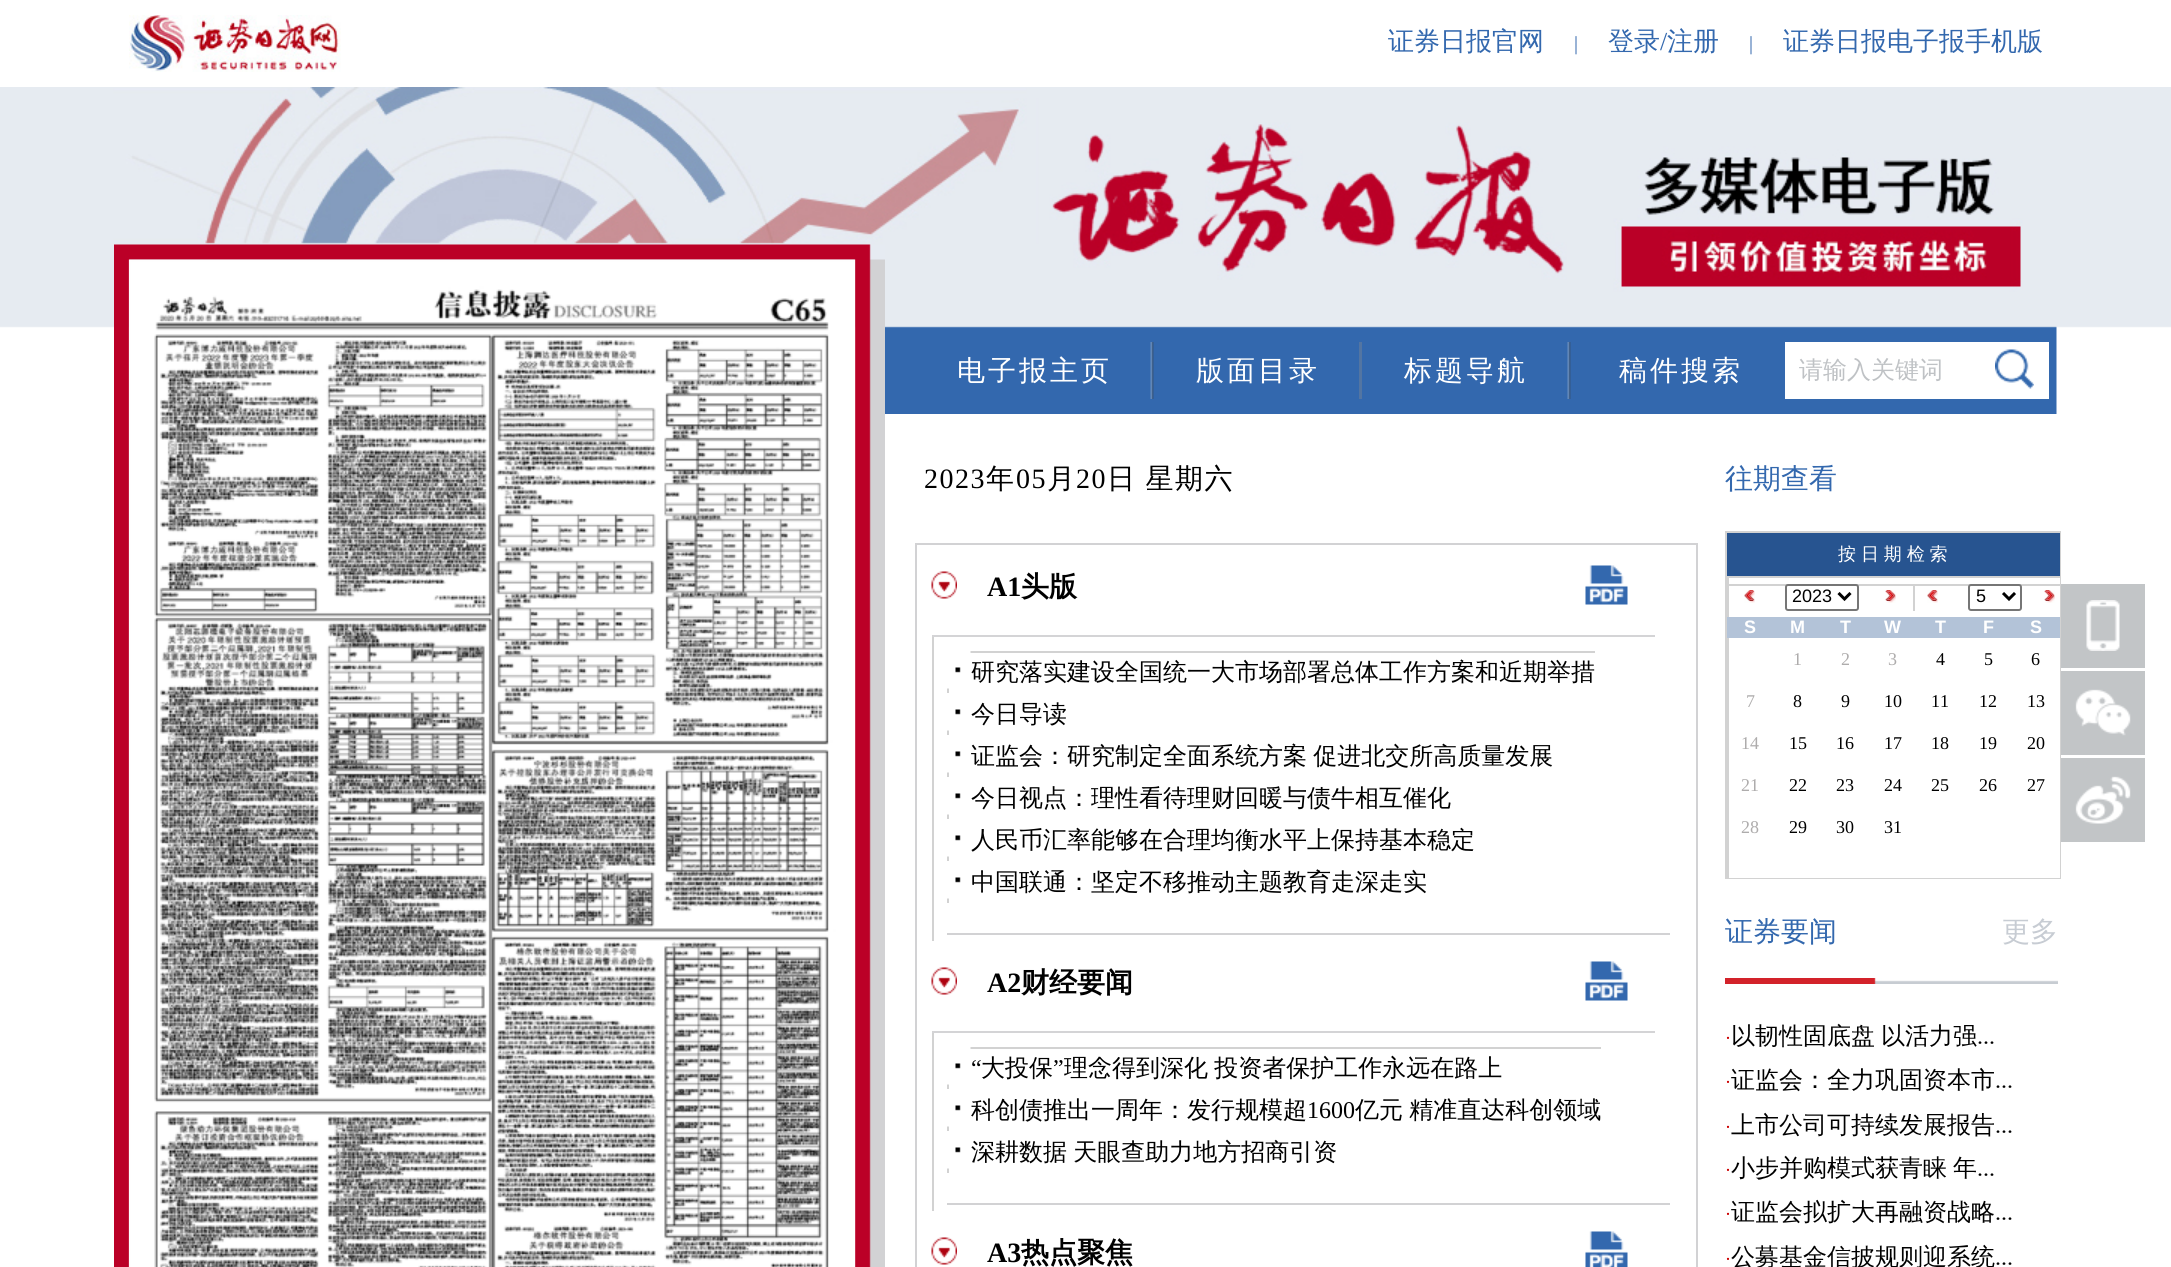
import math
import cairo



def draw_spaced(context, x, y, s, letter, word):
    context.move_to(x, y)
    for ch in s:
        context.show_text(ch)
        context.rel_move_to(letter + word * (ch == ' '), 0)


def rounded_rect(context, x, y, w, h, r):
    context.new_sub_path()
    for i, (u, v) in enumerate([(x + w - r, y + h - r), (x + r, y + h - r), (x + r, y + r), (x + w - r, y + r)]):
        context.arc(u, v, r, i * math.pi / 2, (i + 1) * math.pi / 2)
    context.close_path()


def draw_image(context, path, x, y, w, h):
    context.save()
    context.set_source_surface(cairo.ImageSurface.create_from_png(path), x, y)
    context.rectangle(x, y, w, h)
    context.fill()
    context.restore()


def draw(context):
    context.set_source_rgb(1, 1, 1)
    context.paint()
    draw_image(context, "images/1.png", 129, 15, 212, 57)
    draw_image(context, "images/2.png", 0, 87, 2171, 327)
    draw_image(context, "images/3.png", 114, 244, 771, 1023)
    draw_image(context, "images/4.png", 129, 259, 726, 1008)
    draw_image(context, "images/5.png", 1150, 342, 4, 57)
    context.set_source_rgb(83 / 255, 117 / 255, 162 / 255)
    context.rectangle(1359, 342, 3, 57)
    context.fill()
    draw_image(context, "images/5.png", 1567, 342, 4, 57)
    context.set_source_rgb(1, 1, 1)
    context.rectangle(1785, 342, 264, 57)
    context.fill()
    draw_image(context, "images/6.png", 1995, 349, 39, 40)
    context.rectangle(916, 544, 781, 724)
    context.set_source_rgb(210 / 255, 210 / 255, 212 / 255)
    context.stroke()
    context.set_source_rgb(210 / 255, 210 / 255, 210 / 255)
    context.rectangle(932, 637, 2, 304)
    context.fill()
    draw_image(context, "images/7.png", 931, 571, 26, 28)
    context.set_source_rgb(212 / 255, 212 / 255, 214 / 255)
    context.rectangle(932, 635, 723, 2)
    context.fill()
    draw_image(context, "images/8.png", 1585, 565, 43, 40)
    context.set_source_rgb(210 / 255, 210 / 255, 212 / 255)
    context.rectangle(947, 933, 723, 2)
    context.fill()
    context.set_source_rgb(210 / 255, 210 / 255, 210 / 255)
    context.rectangle(970, 651, 625, 2)
    context.fill()
    context.rectangle(947, 688, 2, 215)
    context.fill()
    draw_image(context, "images/9.png", 947, 651, 24, 38)
    draw_image(context, "images/10.png", 947, 693, 14, 38)
    draw_image(context, "images/10.png", 947, 735, 14, 38)
    draw_image(context, "images/10.png", 947, 777, 14, 38)
    draw_image(context, "images/10.png", 947, 819, 14, 38)
    draw_image(context, "images/10.png", 947, 861, 14, 38)
    context.rectangle(932, 1033, 2, 178)
    context.fill()
    draw_image(context, "images/7.png", 931, 967, 26, 28)
    context.set_source_rgb(212 / 255, 212 / 255, 214 / 255)
    context.rectangle(932, 1031, 723, 2)
    context.fill()
    draw_image(context, "images/8.png", 1585, 961, 43, 40)
    context.set_source_rgb(210 / 255, 210 / 255, 212 / 255)
    context.rectangle(947, 1203, 723, 2)
    context.fill()
    context.set_source_rgb(210 / 255, 210 / 255, 210 / 255)
    context.rectangle(970, 1047, 631, 2)
    context.fill()
    context.rectangle(947, 1084, 2, 89)
    context.fill()
    draw_image(context, "images/9.png", 947, 1047, 24, 38)
    draw_image(context, "images/10.png", 947, 1089, 14, 38)
    draw_image(context, "images/10.png", 947, 1131, 14, 38)
    draw_image(context, "images/7.png", 931, 1237, 26, 28)
    draw_image(context, "images/11.png", 1585, 1231, 43, 36)
    context.rectangle(1726, 532, 334, 346)
    context.stroke()
    context.set_source_rgb(39 / 255, 84 / 255, 144 / 255)
    context.rectangle(1727, 533, 333, 43)
    context.fill()
    context.set_source_rgb(1, 1, 1)
    context.rectangle(1729, 578, 331, 300)
    context.fill()
    context.set_source_rgb(210 / 255, 210 / 255, 210 / 255)
    context.rectangle(1727, 576, 333, 2)
    context.fill()
    context.rectangle(1727, 576, 2, 302)
    context.fill()
    context.rectangle(1727, 584, 333, 2)
    context.fill()
    draw_image(context, "images/12.png", 1744, 590, 11, 13)
    context.set_source_rgb(1, 1, 1)
    rounded_rect(context, 1786, 585, 72, 25, 2)
    context.fill_preserve()
    context.set_source_rgb(118 / 255, 118 / 255, 118 / 255)
    context.stroke()
    context.new_path()
    context.move_to(1838.5, 593)
    context.line_to(1844.5, 599)
    context.line_to(1850.5, 593)
    context.set_source_rgb(0, 0, 0)
    context.set_line_width(3)
    context.stroke()
    draw_image(context, "images/13.png", 1885, 590, 11, 13)
    context.set_source_rgb(210 / 255, 210 / 255, 210 / 255)
    context.rectangle(1913, 584, 2, 27)
    context.fill()
    draw_image(context, "images/14.png", 1927, 590, 11, 13)
    context.set_source_rgb(1, 1, 1)
    rounded_rect(context, 1969, 585, 52, 25, 2)
    context.fill_preserve()
    context.set_source_rgb(118 / 255, 118 / 255, 118 / 255)
    context.set_line_width(2)
    context.stroke()
    context.new_path()
    context.move_to(2003, 593)
    context.line_to(2009, 599)
    context.line_to(2015, 593)
    context.set_source_rgb(0, 0, 0)
    context.set_line_width(3)
    context.stroke()
    draw_image(context, "images/13.png", 2044, 590, 11, 13)
    context.set_source_rgb(179 / 255, 195 / 255, 216 / 255)
    context.rectangle(1727, 617, 333, 21)
    context.fill()
    draw_image(context, "images/15.png", 1725, 978, 333, 6)
    draw_image(context, "images/16.png", 1726, 1023, 286, 244)
    context.set_source_rgb(194 / 255, 197 / 255, 199 / 255)
    context.rectangle(2061, 584, 84, 84)
    context.fill()
    draw_image(context, "images/17.png", 2086, 600, 34, 51)
    context.rectangle(2061, 671, 84, 84)
    context.fill()
    draw_image(context, "images/18.png", 2075, 689, 56, 47)
    context.rectangle(2061, 758, 84, 84)
    context.fill()
    draw_image(context, "images/19.png", 2075, 776, 56, 48)
    context.select_font_face("WenQuanYi Zen Hei Medium")
    context.set_font_size(26)
    context.set_source_rgb(51 / 255, 104 / 255, 174 / 255)
    context.move_to(1388, 50)
    context.show_text("证券日报官网")
    context.select_font_face("Liberation Serif")
    context.set_font_size(20)
    context.move_to(1574, 50)
    context.show_text("|")
    context.select_font_face("WenQuanYi Zen Hei Medium")
    context.set_font_size(26)
    context.move_to(1608, 50)
    context.show_text("登录")
    context.select_font_face("Liberation Serif")
    context.move_to(1660, 50)
    context.show_text("/")
    context.select_font_face("WenQuanYi Zen Hei Medium")
    context.move_to(1667, 50)
    context.show_text("注册")
    context.select_font_face("Liberation Serif")
    context.set_font_size(20)
    context.move_to(1749, 50)
    context.show_text("|")
    context.select_font_face("WenQuanYi Zen Hei Medium")
    context.set_font_size(26)
    context.move_to(1783, 50)
    context.show_text("证券日报电子报手机版")
    context.set_font_size(28)
    context.set_source_rgb(1, 1, 1)
    draw_spaced(context, 957, 380, "电子报主页", 3, 0)
    draw_spaced(context, 1196, 380, "版面目录", 3, 0)
    draw_spaced(context, 1404, 380, "标题导航", 3, 0)
    draw_spaced(context, 1619, 380, "稿件搜索", 3, 0)
    context.set_font_size(24)
    context.set_source_rgb(191 / 255, 194 / 255, 197 / 255)
    context.move_to(1799, 378)
    context.show_text("请输入关键词")
    context.select_font_face("Liberation Serif")
    context.set_font_size(28)
    context.set_source_rgb(0, 0, 0)
    draw_spaced(context, 924, 488, "2023", 1.5, 0)
    context.select_font_face("WenQuanYi Zen Hei Medium")
    draw_spaced(context, 986, 488, "年", 1.5, 0)
    context.select_font_face("Liberation Serif")
    draw_spaced(context, 1016, 488, "05", 1.5, 0)
    context.select_font_face("WenQuanYi Zen Hei Medium")
    draw_spaced(context, 1047, 488, "月", 1.5, 0)
    context.select_font_face("Liberation Serif")
    draw_spaced(context, 1076, 488, "20", 1.5, 0)
    context.select_font_face("WenQuanYi Zen Hei Medium")
    draw_spaced(context, 1107, 488, "日 星期六", 1.5, -1)
    context.select_font_face("Liberation Serif", cairo.FontSlant.NORMAL, cairo.FontWeight.BOLD)
    context.move_to(987, 596)
    context.show_text("A1")
    context.select_font_face("WenQuanYi Zen Hei", cairo.FontSlant.NORMAL, cairo.FontWeight.BOLD)
    context.move_to(1021, 596)
    context.show_text("头版")
    context.select_font_face("WenQuanYi Zen Hei Medium")
    context.set_font_size(24)
    context.move_to(971, 680)
    context.show_text("研究落实建设全国统一大市场部署总体工作方案和近期举措")
    context.move_to(971, 722)
    context.show_text("今日导读")
    draw_spaced(context, 971, 764, "证监会：研究制定全面系统方案 促进北交所高质量发展", 0, -1)
    context.move_to(971, 806)
    context.show_text("今日视点：理性看待理财回暖与债牛相互催化")
    context.move_to(971, 848)
    context.show_text("人民币汇率能够在合理均衡水平上保持基本稳定")
    context.move_to(971, 890)
    context.show_text("中国联通：坚定不移推动主题教育走深走实")
    context.select_font_face("Liberation Serif", cairo.FontSlant.NORMAL, cairo.FontWeight.BOLD)
    context.set_font_size(28)
    context.move_to(987, 992)
    context.show_text("A2")
    context.select_font_face("WenQuanYi Zen Hei", cairo.FontSlant.NORMAL, cairo.FontWeight.BOLD)
    context.move_to(1021, 992)
    context.show_text("财经要闻")
    context.select_font_face("Liberation Serif")
    context.set_font_size(24)
    context.move_to(971, 1076)
    context.show_text("“")
    context.select_font_face("WenQuanYi Zen Hei Medium")
    context.move_to(981, 1076)
    context.show_text("大投保")
    context.select_font_face("Liberation Serif")
    context.move_to(1053, 1076)
    context.show_text("”")
    context.select_font_face("WenQuanYi Zen Hei Medium")
    draw_spaced(context, 1064, 1076, "理念得到深化 投资者保护工作永远在路上", 0, -1)
    context.move_to(971, 1118)
    context.show_text("科创债推出一周年：发行规模超")
    context.select_font_face("Liberation Serif")
    context.move_to(1307, 1118)
    context.show_text("1600")
    context.select_font_face("WenQuanYi Zen Hei Medium")
    draw_spaced(context, 1355, 1118, "亿元 精准直达科创领域", 0, -1)
    draw_spaced(context, 971, 1160, "深耕数据 天眼查助力地方招商引资", 0, -1)
    context.select_font_face("Liberation Serif", cairo.FontSlant.NORMAL, cairo.FontWeight.BOLD)
    context.set_font_size(28)
    context.move_to(987, 1262)
    context.show_text("A3")
    context.select_font_face("WenQuanYi Zen Hei", cairo.FontSlant.NORMAL, cairo.FontWeight.BOLD)
    context.move_to(1021, 1262)
    context.show_text("热点聚焦")
    context.select_font_face("WenQuanYi Zen Hei Medium")
    context.set_source_rgb(51 / 255, 104 / 255, 174 / 255)
    context.move_to(1725, 488)
    context.show_text("往期查看")
    context.set_font_size(18)
    context.set_source_rgb(1, 1, 1)
    draw_spaced(context, 1838, 560, "按 日 期 检 索", 0, -0.5)
    context.select_font_face("Liberation Sans")
    context.set_source_rgb(0, 0, 0)
    context.move_to(1792, 602)
    context.show_text("2023")
    context.move_to(1976, 602)
    context.show_text("5")
    context.select_font_face("Liberation Sans", cairo.FontSlant.NORMAL, cairo.FontWeight.BOLD)
    context.set_source_rgb(1, 1, 1)
    context.move_to(1744, 633)
    context.show_text("S")
    context.move_to(1790, 633)
    context.show_text("M")
    context.move_to(1840, 633)
    context.show_text("T")
    context.move_to(1884, 633)
    context.show_text("W")
    context.move_to(1935, 633)
    context.show_text("T")
    context.move_to(1983, 633)
    context.show_text("F")
    context.move_to(2030, 633)
    context.show_text("S")
    context.select_font_face("Liberation Serif")
    context.set_source_rgb(174 / 255, 172 / 255, 172 / 255)
    context.move_to(1793, 665)
    context.show_text("1")
    context.move_to(1841, 665)
    context.show_text("2")
    context.move_to(1888, 665)
    context.show_text("3")
    context.set_source_rgb(0, 0, 0)
    context.move_to(1936, 665)
    context.show_text("4")
    context.move_to(1984, 665)
    context.show_text("5")
    context.move_to(2031, 665)
    context.show_text("6")
    context.set_source_rgb(174 / 255, 172 / 255, 172 / 255)
    context.move_to(1746, 707)
    context.show_text("7")
    context.set_source_rgb(0, 0, 0)
    context.move_to(1793, 707)
    context.show_text("8")
    context.move_to(1841, 707)
    context.show_text("9")
    context.move_to(1884, 707)
    context.show_text("10")
    context.move_to(1931, 707)
    context.show_text("11")
    context.move_to(1979, 707)
    context.show_text("12")
    context.move_to(2027, 707)
    context.show_text("13")
    context.set_source_rgb(174 / 255, 172 / 255, 172 / 255)
    context.move_to(1741, 749)
    context.show_text("14")
    context.set_source_rgb(0, 0, 0)
    context.move_to(1789, 749)
    context.show_text("15")
    context.move_to(1836, 749)
    context.show_text("16")
    context.move_to(1884, 749)
    context.show_text("17")
    context.move_to(1931, 749)
    context.show_text("18")
    context.move_to(1979, 749)
    context.show_text("19")
    context.move_to(2027, 749)
    context.show_text("20")
    context.set_source_rgb(174 / 255, 172 / 255, 172 / 255)
    context.move_to(1741, 791)
    context.show_text("21")
    context.set_source_rgb(0, 0, 0)
    context.move_to(1789, 791)
    context.show_text("22")
    context.move_to(1836, 791)
    context.show_text("23")
    context.move_to(1884, 791)
    context.show_text("24")
    context.move_to(1931, 791)
    context.show_text("25")
    context.move_to(1979, 791)
    context.show_text("26")
    context.move_to(2027, 791)
    context.show_text("27")
    context.set_source_rgb(174 / 255, 172 / 255, 172 / 255)
    context.move_to(1741, 833)
    context.show_text("28")
    context.set_source_rgb(0, 0, 0)
    context.move_to(1789, 833)
    context.show_text("29")
    context.move_to(1836, 833)
    context.show_text("30")
    context.move_to(1884, 833)
    context.show_text("31")
    context.select_font_face("WenQuanYi Zen Hei Medium")
    context.set_font_size(28)
    context.set_source_rgb(51 / 255, 104 / 255, 174 / 255)
    context.move_to(1725, 941)
    context.show_text("证券要闻")
    context.set_source_rgb(199 / 255, 204 / 255, 211 / 255)
    context.move_to(2002, 941)
    context.show_text("更多")


surface = cairo.ImageSurface(cairo.Format.RGB24, 2171, 1267)
context = cairo.Context(surface)
options = cairo.FontOptions()
options.set_hint_metrics(cairo.HintMetrics.OFF)
options.set_hint_style(cairo.HintStyle.NONE)
context.set_font_options(options)
context.set_miter_limit(4)
draw(context)
surface.write_to_png("out.png")
